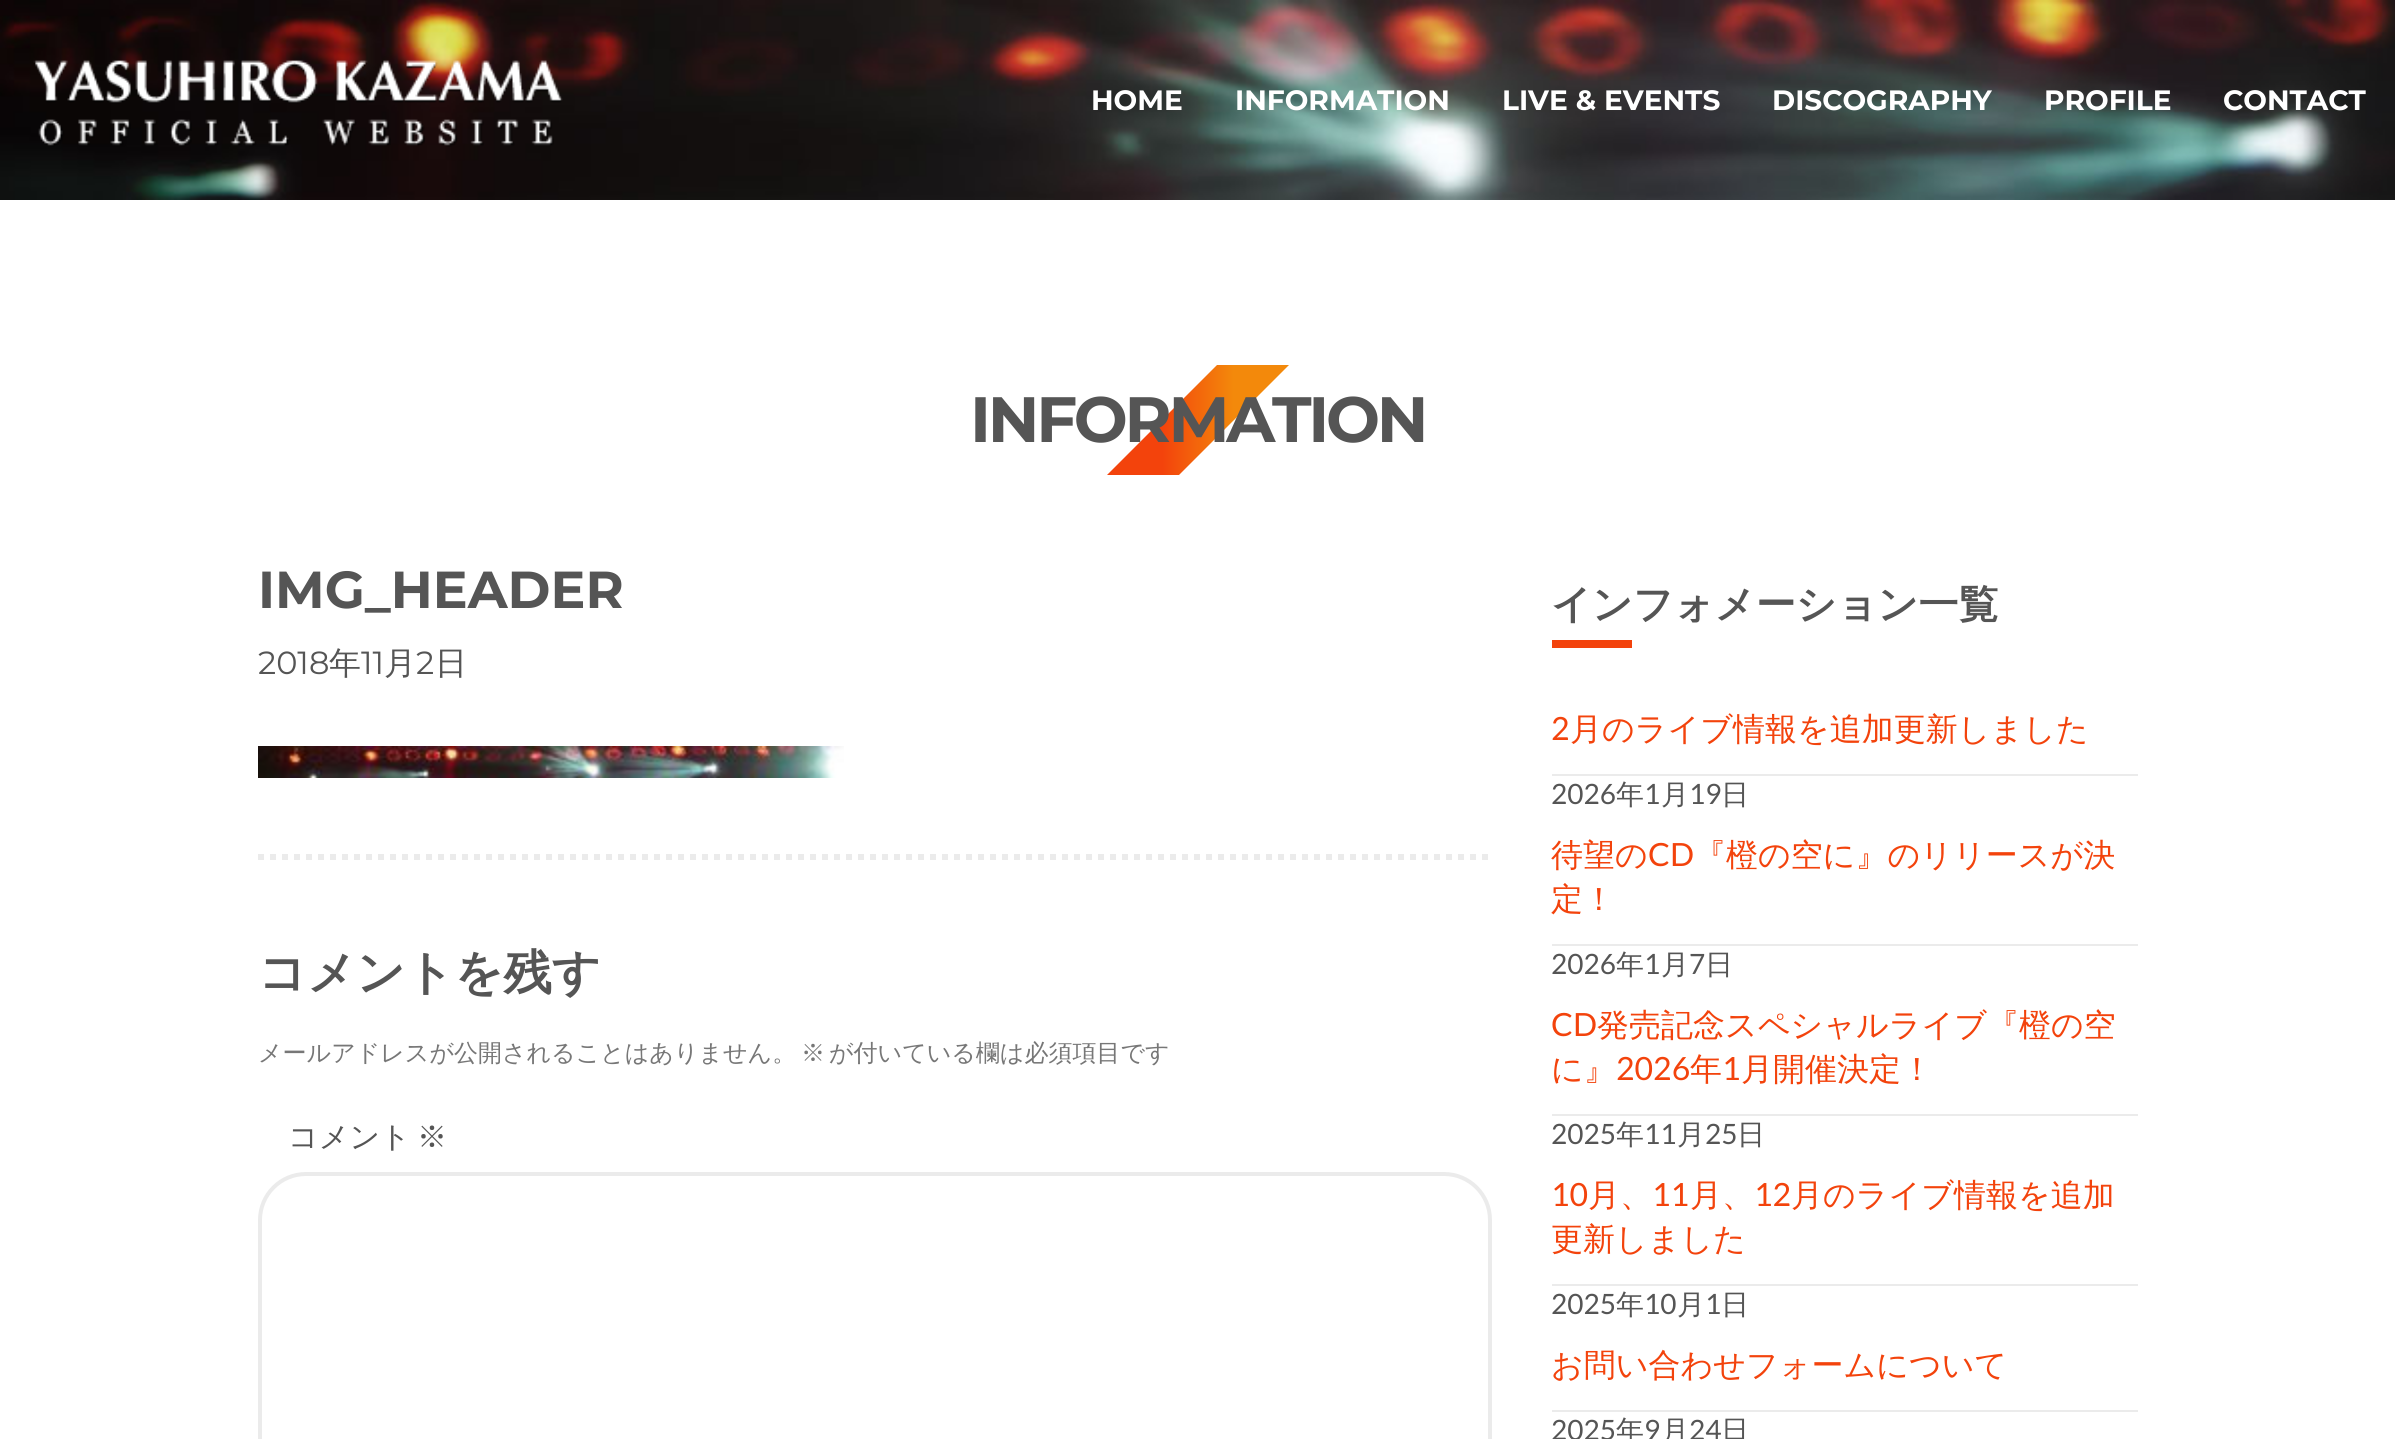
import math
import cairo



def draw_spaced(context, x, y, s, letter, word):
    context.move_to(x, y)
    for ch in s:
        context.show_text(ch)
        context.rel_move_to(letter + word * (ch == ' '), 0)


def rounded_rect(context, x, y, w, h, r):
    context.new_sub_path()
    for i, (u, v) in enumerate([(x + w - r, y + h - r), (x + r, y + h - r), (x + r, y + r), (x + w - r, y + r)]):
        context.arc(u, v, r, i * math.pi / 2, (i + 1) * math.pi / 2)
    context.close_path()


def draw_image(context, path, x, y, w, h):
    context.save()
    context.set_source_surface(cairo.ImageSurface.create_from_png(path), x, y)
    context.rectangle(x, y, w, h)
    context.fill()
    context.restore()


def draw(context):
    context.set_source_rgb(1, 1, 1)
    context.paint()
    draw_image(context, "images/1.png", 0, 0, 2395, 200)
    draw_image(context, "images/2.png", 33, 60, 530, 87)
    gradient = cairo.LinearGradient(1162, 420, 1234, 420)
    gradient.add_color_stop_rgba(0, 243 / 255, 67 / 255, 12 / 255, 1)
    gradient.add_color_stop_rgba(1, 243 / 255, 137 / 255, 11 / 255, 1)
    context.set_source(gradient)
    context.new_path()
    context.move_to(1217, 365)
    context.line_to(1289, 365)
    context.line_to(1179, 475)
    context.line_to(1107, 475)
    context.close_path()
    context.fill()
    context.new_path()
    context.move_to(258, 857)
    context.line_to(1492, 857)
    context.set_source_rgb(235 / 255, 235 / 255, 235 / 255)
    context.set_line_width(6)
    context.set_dash([6, 6])
    context.stroke()
    draw_image(context, "images/3.png", 258, 746, 586, 32)
    rounded_rect(context, 260, 1174, 1230, 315, 46)
    context.set_line_width(4)
    context.set_dash([])
    context.stroke()
    context.set_source_rgb(243 / 255, 67 / 255, 12 / 255)
    context.rectangle(1552, 640, 80, 8)
    context.fill()
    context.set_source_rgb(235 / 255, 235 / 255, 235 / 255)
    context.rectangle(1552, 774, 586, 2)
    context.fill()
    context.rectangle(1552, 944, 586, 2)
    context.fill()
    context.rectangle(1552, 1114, 586, 2)
    context.fill()
    context.rectangle(1552, 1284, 586, 2)
    context.fill()
    context.rectangle(1552, 1410, 586, 2)
    context.fill()
    context.select_font_face("Montserrat", cairo.FontSlant.NORMAL, cairo.FontWeight.BOLD)
    context.set_font_size(28)
    context.set_source_rgb(1, 1, 1)
    context.move_to(1091, 110)
    context.show_text("HOME")
    context.move_to(1235, 110)
    context.show_text("INFORMATION")
    context.move_to(1502, 110)
    context.show_text("LIVE & EVENTS")
    context.move_to(1772, 110)
    context.show_text("DISCOGRAPHY")
    context.move_to(2044, 110)
    context.show_text("PROFILE")
    context.move_to(2223, 110)
    context.show_text("CONTACT")
    context.set_font_size(64)
    context.set_source_rgb(85 / 255, 85 / 255, 85 / 255)
    draw_spaced(context, 970, 442, "INFORMATION", -3.25, 0)
    context.set_font_size(52)
    context.move_to(258, 608)
    context.show_text("IMG_HEADER")
    context.select_font_face("Montserrat")
    context.set_font_size(32)
    context.move_to(258, 674)
    context.show_text("2018")
    context.select_font_face("WenQuanYi Zen Hei Medium")
    context.move_to(329, 674)
    context.show_text("年")
    context.select_font_face("Montserrat")
    context.move_to(361, 674)
    context.show_text("11")
    context.select_font_face("WenQuanYi Zen Hei Medium")
    context.move_to(384, 674)
    context.show_text("月")
    context.select_font_face("Montserrat")
    context.move_to(416, 674)
    context.show_text("2")
    context.select_font_face("WenQuanYi Zen Hei Medium")
    context.move_to(435, 674)
    context.show_text("日")
    context.select_font_face("WenQuanYi Zen Hei", cairo.FontSlant.NORMAL, cairo.FontWeight.BOLD)
    context.set_font_size(48)
    context.move_to(258, 989)
    context.show_text("コメントを残す")
    context.select_font_face("WenQuanYi Zen Hei Medium")
    context.set_font_size(24)
    context.set_source_rgb(119 / 255, 119 / 255, 119 / 255)
    context.move_to(258, 1061)
    context.show_text("メールアドレスが公開されることはありません。")
    context.move_to(801, 1061)
    context.show_text("※")
    context.move_to(829, 1061)
    context.show_text("が付いている欄は必須項目です")
    context.set_font_size(30)
    context.set_source_rgb(85 / 255, 85 / 255, 85 / 255)
    context.move_to(288, 1147)
    context.show_text("コメント")
    context.move_to(417, 1147)
    context.show_text("※")
    context.select_font_face("WenQuanYi Zen Hei", cairo.FontSlant.NORMAL, cairo.FontWeight.BOLD)
    context.set_font_size(40)
    context.move_to(1551, 618)
    context.show_text("インフォメーション一覧")
    context.select_font_face("Lato")
    context.set_font_size(32)
    context.set_source_rgb(243 / 255, 67 / 255, 12 / 255)
    context.move_to(1551, 740)
    context.show_text("2")
    context.select_font_face("WenQuanYi Zen Hei Medium")
    context.move_to(1570, 740)
    context.show_text("月のライブ情報を追加更新しました")
    context.select_font_face("Lato")
    context.set_font_size(28)
    context.set_source_rgb(85 / 255, 85 / 255, 85 / 255)
    context.move_to(1551, 804)
    context.show_text("2026")
    context.select_font_face("WenQuanYi Zen Hei Medium")
    context.move_to(1616, 804)
    context.show_text("年")
    context.select_font_face("Lato")
    context.move_to(1644, 804)
    context.show_text("1")
    context.select_font_face("WenQuanYi Zen Hei Medium")
    context.move_to(1661, 804)
    context.show_text("月")
    context.select_font_face("Lato")
    context.move_to(1689, 804)
    context.show_text("19")
    context.select_font_face("WenQuanYi Zen Hei Medium")
    context.move_to(1721, 804)
    context.show_text("日")
    context.set_font_size(32)
    context.set_source_rgb(243 / 255, 67 / 255, 12 / 255)
    context.move_to(1551, 866)
    context.show_text("待望の")
    context.select_font_face("Lato")
    context.move_to(1648, 866)
    context.show_text("CD")
    context.select_font_face("WenQuanYi Zen Hei Medium")
    context.move_to(1694, 866)
    context.show_text("『橙の空に』のリリースが決")
    context.move_to(1551, 910)
    context.show_text("定！")
    context.select_font_face("Lato")
    context.set_font_size(28)
    context.set_source_rgb(85 / 255, 85 / 255, 85 / 255)
    context.move_to(1551, 974)
    context.show_text("2026")
    context.select_font_face("WenQuanYi Zen Hei Medium")
    context.move_to(1616, 974)
    context.show_text("年")
    context.select_font_face("Lato")
    context.move_to(1644, 974)
    context.show_text("1")
    context.select_font_face("WenQuanYi Zen Hei Medium")
    context.move_to(1661, 974)
    context.show_text("月")
    context.select_font_face("Lato")
    context.move_to(1689, 974)
    context.show_text("7")
    context.select_font_face("WenQuanYi Zen Hei Medium")
    context.move_to(1705, 974)
    context.show_text("日")
    context.select_font_face("Lato")
    context.set_font_size(32)
    context.set_source_rgb(243 / 255, 67 / 255, 12 / 255)
    context.move_to(1551, 1036)
    context.show_text("CD")
    context.select_font_face("WenQuanYi Zen Hei Medium")
    context.move_to(1597, 1036)
    context.show_text("発売記念スペシャルライブ『橙の空")
    context.move_to(1551, 1080)
    context.show_text("に』")
    context.select_font_face("Lato")
    context.move_to(1616, 1080)
    context.show_text("2026")
    context.select_font_face("WenQuanYi Zen Hei Medium")
    context.move_to(1690, 1080)
    context.show_text("年")
    context.select_font_face("Lato")
    context.move_to(1722, 1080)
    context.show_text("1")
    context.select_font_face("WenQuanYi Zen Hei Medium")
    context.move_to(1741, 1080)
    context.show_text("月開催決定！")
    context.select_font_face("Lato")
    context.set_font_size(28)
    context.set_source_rgb(85 / 255, 85 / 255, 85 / 255)
    context.move_to(1551, 1144)
    context.show_text("2025")
    context.select_font_face("WenQuanYi Zen Hei Medium")
    context.move_to(1616, 1144)
    context.show_text("年")
    context.select_font_face("Lato")
    context.move_to(1644, 1144)
    context.show_text("11")
    context.select_font_face("WenQuanYi Zen Hei Medium")
    context.move_to(1677, 1144)
    context.show_text("月")
    context.select_font_face("Lato")
    context.move_to(1705, 1144)
    context.show_text("25")
    context.select_font_face("WenQuanYi Zen Hei Medium")
    context.move_to(1737, 1144)
    context.show_text("日")
    context.select_font_face("Lato")
    context.set_font_size(32)
    context.set_source_rgb(243 / 255, 67 / 255, 12 / 255)
    context.move_to(1551, 1206)
    context.show_text("10")
    context.select_font_face("WenQuanYi Zen Hei Medium")
    context.move_to(1588, 1206)
    context.show_text("月、")
    context.select_font_face("Lato")
    context.move_to(1652, 1206)
    context.show_text("11")
    context.select_font_face("WenQuanYi Zen Hei Medium")
    context.move_to(1690, 1206)
    context.show_text("月、")
    context.select_font_face("Lato")
    context.move_to(1754, 1206)
    context.show_text("12")
    context.select_font_face("WenQuanYi Zen Hei Medium")
    context.move_to(1791, 1206)
    context.show_text("月のライブ情報を追加")
    context.move_to(1551, 1250)
    context.show_text("更新しました")
    context.select_font_face("Lato")
    context.set_font_size(28)
    context.set_source_rgb(85 / 255, 85 / 255, 85 / 255)
    context.move_to(1551, 1314)
    context.show_text("2025")
    context.select_font_face("WenQuanYi Zen Hei Medium")
    context.move_to(1616, 1314)
    context.show_text("年")
    context.select_font_face("Lato")
    context.move_to(1644, 1314)
    context.show_text("10")
    context.select_font_face("WenQuanYi Zen Hei Medium")
    context.move_to(1677, 1314)
    context.show_text("月")
    context.select_font_face("Lato")
    context.move_to(1705, 1314)
    context.show_text("1")
    context.select_font_face("WenQuanYi Zen Hei Medium")
    context.move_to(1721, 1314)
    context.show_text("日")
    context.set_font_size(32)
    context.set_source_rgb(243 / 255, 67 / 255, 12 / 255)
    context.move_to(1551, 1376)
    context.show_text("お問い合わせフォームについて")
    context.select_font_face("Lato")
    context.set_font_size(28)
    context.set_source_rgb(85 / 255, 85 / 255, 85 / 255)
    context.move_to(1551, 1440)
    context.show_text("2025")
    context.select_font_face("WenQuanYi Zen Hei Medium")
    context.move_to(1616, 1440)
    context.show_text("年")
    context.select_font_face("Lato")
    context.move_to(1644, 1440)
    context.show_text("9")
    context.select_font_face("WenQuanYi Zen Hei Medium")
    context.move_to(1661, 1440)
    context.show_text("月")
    context.select_font_face("Lato")
    context.move_to(1689, 1440)
    context.show_text("24")
    context.select_font_face("WenQuanYi Zen Hei Medium")
    context.move_to(1721, 1440)
    context.show_text("日")


surface = cairo.ImageSurface(cairo.Format.RGB24, 2395, 1439)
context = cairo.Context(surface)
options = cairo.FontOptions()
options.set_hint_metrics(cairo.HintMetrics.OFF)
options.set_hint_style(cairo.HintStyle.NONE)
context.set_font_options(options)
context.set_miter_limit(4)
draw(context)
surface.write_to_png("out.png")
